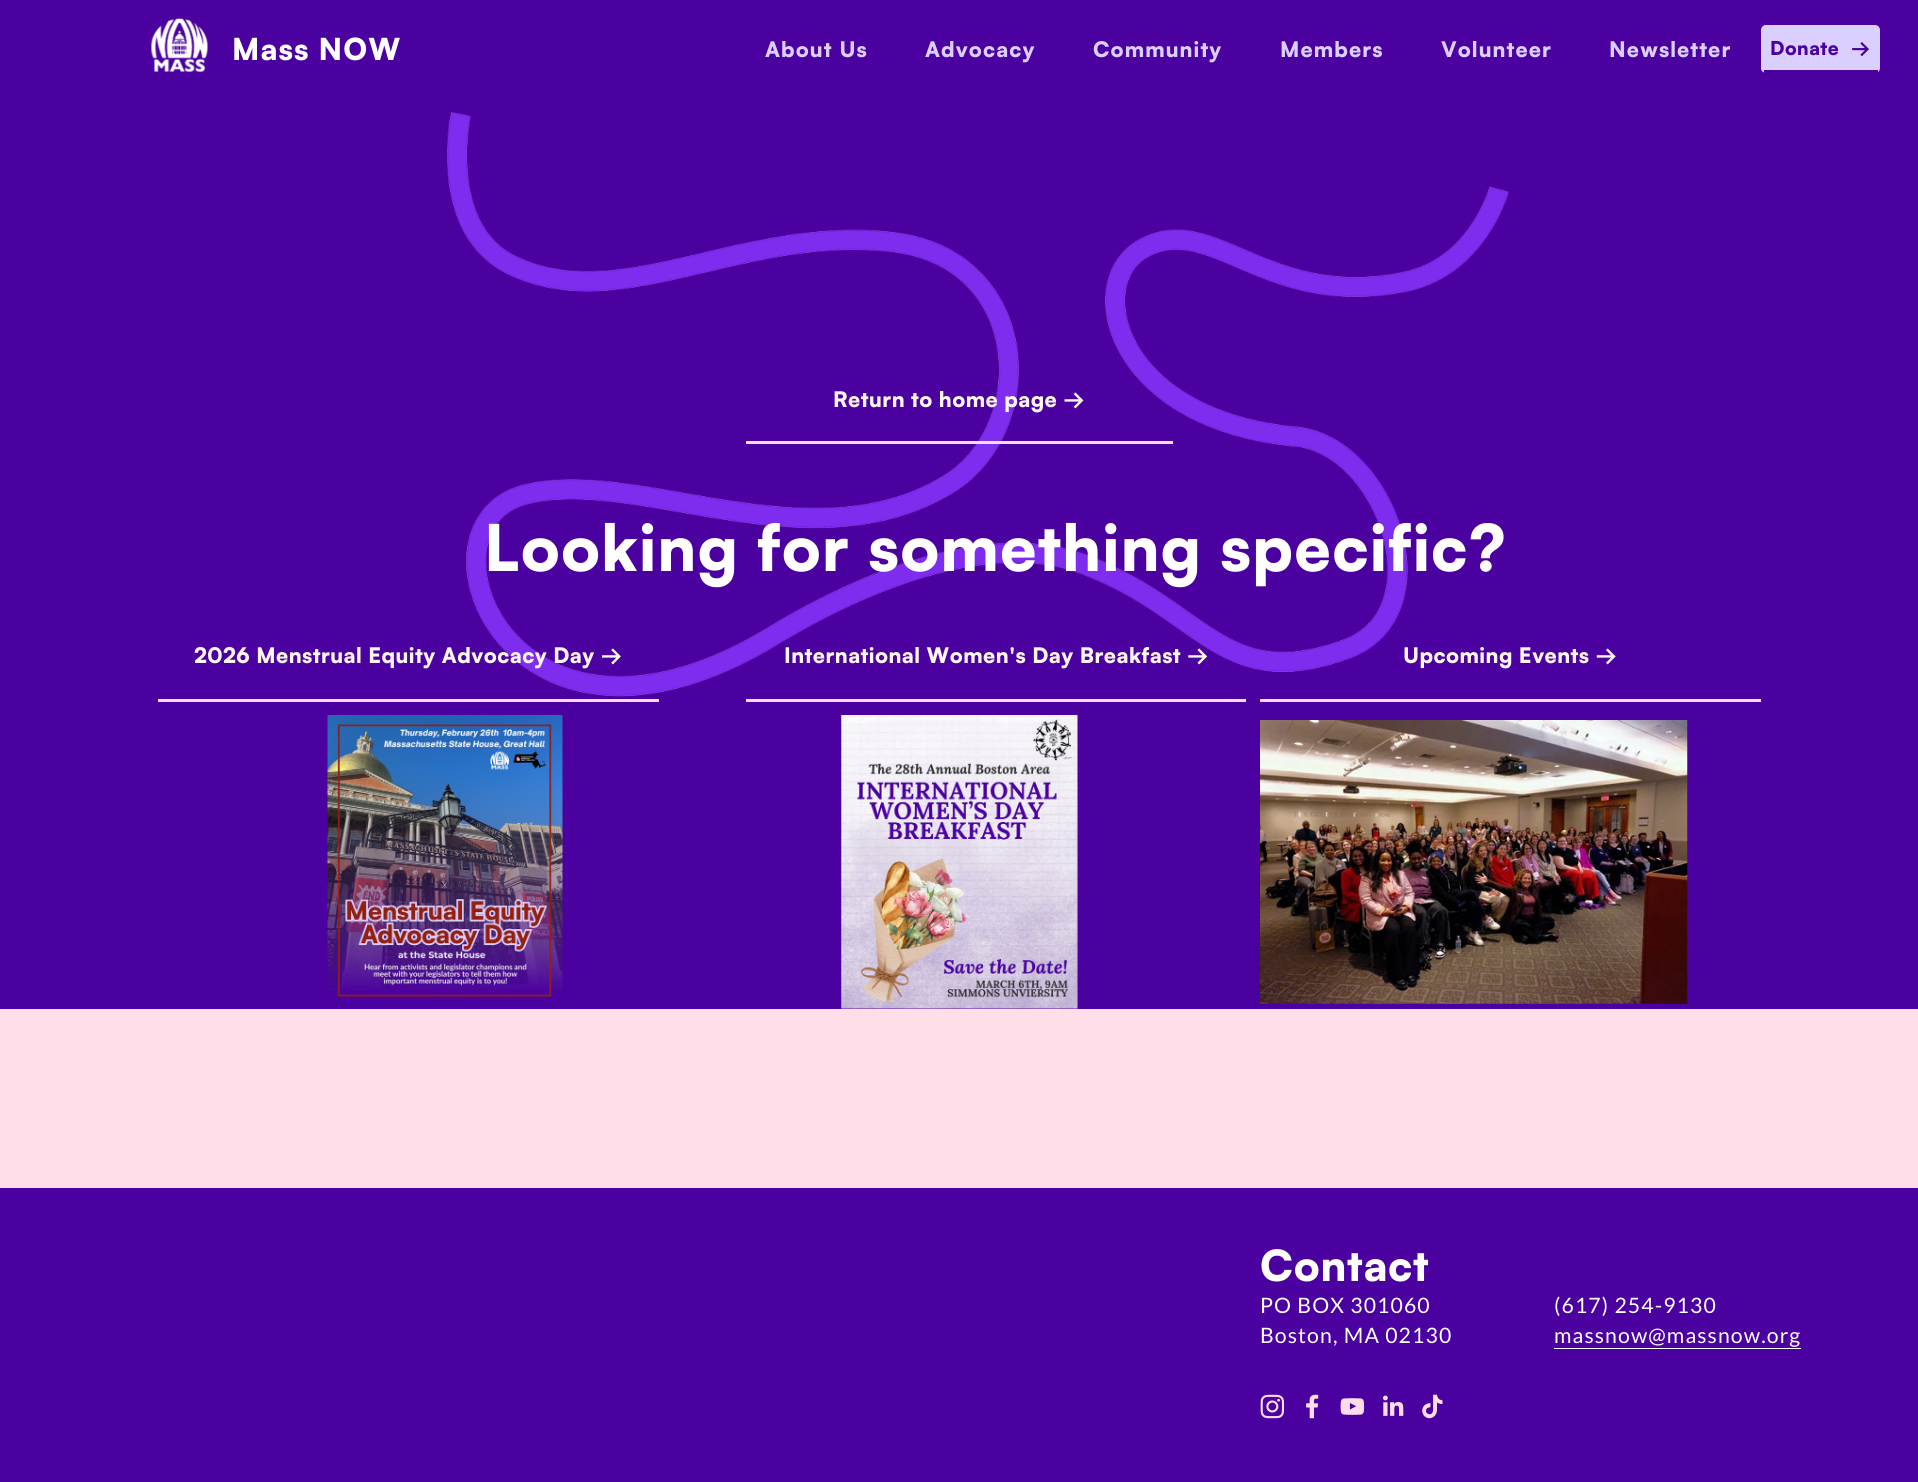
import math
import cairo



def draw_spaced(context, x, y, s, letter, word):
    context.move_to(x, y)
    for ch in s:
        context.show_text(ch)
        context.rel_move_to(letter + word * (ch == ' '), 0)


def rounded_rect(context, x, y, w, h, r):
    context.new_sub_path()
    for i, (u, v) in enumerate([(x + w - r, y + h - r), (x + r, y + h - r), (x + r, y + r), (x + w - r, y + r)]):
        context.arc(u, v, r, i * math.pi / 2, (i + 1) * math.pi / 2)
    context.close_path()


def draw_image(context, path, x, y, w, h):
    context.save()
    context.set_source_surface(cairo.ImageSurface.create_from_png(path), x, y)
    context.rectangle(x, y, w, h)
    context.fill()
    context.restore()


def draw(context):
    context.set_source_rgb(1, 221 / 255, 233 / 255)
    context.paint()
    context.set_source_rgb(75 / 255, 0, 160 / 255)
    context.rectangle(0, 0, 1918, 1009)
    context.fill()
    draw_image(context, "images/1.png", 150, 18, 58, 55)
    context.set_source_rgb(219 / 255, 207 / 255, 1)
    rounded_rect(context, 1761, 25, 119, 48, 5)
    context.fill()
    context.set_source_rgb(75 / 255, 0, 160 / 255)
    context.rectangle(1764, 70, 114, 3)
    context.fill()
    draw_image(context, "images/2.png", 447, 112, 1062, 585)
    context.set_source_rgb(254 / 255, 221 / 255, 233 / 255)
    context.rectangle(746, 441, 427, 3)
    context.fill()
    context.rectangle(158, 699, 501, 3)
    context.fill()
    context.rectangle(746, 699, 500, 3)
    context.fill()
    context.rectangle(1260, 699, 501, 3)
    context.fill()
    draw_image(context, "images/3.png", 327, 715, 236, 282)
    draw_image(context, "images/4.png", 841, 715, 237, 294)
    draw_image(context, "images/5.png", 1260, 720, 428, 284)
    context.set_source_rgb(75 / 255, 0, 160 / 255)
    context.rectangle(0, 1188, 1918, 294)
    context.fill()
    context.set_source_rgb(1, 1, 1)
    context.rectangle(1554, 1348, 247, 1)
    context.fill()
    draw_image(context, "images/6.png", 1260, 1394, 25, 25)
    draw_image(context, "images/7.png", 1306, 1394, 13, 25)
    draw_image(context, "images/8.png", 1340, 1398, 25, 17)
    draw_image(context, "images/9.png", 1383, 1395, 21, 21)
    draw_image(context, "images/10.png", 1422, 1394, 21, 25)
    context.select_font_face("Satoshi Black")
    context.set_font_size(30)
    draw_spaced(context, 232, 60, "Mass NOW", 1.1, 0)
    context.set_font_size(21.25)
    context.set_source_rgb(219 / 255, 207 / 255, 1)
    draw_spaced(context, 765, 57, "About Us", 1.1, 0)
    draw_spaced(context, 925, 57, "Advocacy", 1.1, 0)
    draw_spaced(context, 1093, 57, "Community", 1.1, 0)
    draw_spaced(context, 1280, 57, "Members", 1.1, 0)
    draw_spaced(context, 1441, 57, "Volunteer", 1.1, 0)
    draw_spaced(context, 1609, 57, "Newsletter", 1.1, 0)
    context.set_font_size(19)
    context.set_source_rgb(75 / 255, 0, 160 / 255)
    draw_spaced(context, 1770, 55, "Donate", 0.5, 0)
    draw_spaced(context, 1851, 55, "→", 0.5, 0)
    context.set_font_size(21.25)
    context.set_source_rgb(1, 247 / 255, 239 / 255)
    draw_spaced(context, 833, 407, "Return to home page →", 0.45, 0)
    context.set_font_size(63.75)
    context.set_source_rgb(1, 1, 1)
    draw_spaced(context, 484, 571, "Looking for something specific?", 1.25, 0)
    context.set_font_size(21.25)
    context.set_source_rgb(1, 247 / 255, 239 / 255)
    draw_spaced(context, 194, 663, "2026 Menstrual Equity Advocacy Day →", 0.45, 0)
    draw_spaced(context, 784, 663, "International Women's Day Breakfast →", 0.45, 0)
    draw_spaced(context, 1403, 663, "Upcoming Events →", 0.45, 0)
    context.set_font_size(42.5)
    context.set_source_rgb(1, 1, 1)
    draw_spaced(context, 1260, 1281, "Contact", 0.75, 0)
    context.select_font_face("Lato")
    context.set_font_size(21.25)
    draw_spaced(context, 1260, 1313, "PO BOX 301060", 1.1, 0)
    draw_spaced(context, 1260, 1343, "Boston, MA 02130", 1.1, 0)
    draw_spaced(context, 1554, 1313, "(617) 254-9130", 1.1, 0)
    draw_spaced(context, 1554, 1343, "massnow@massnow.org", 1.1, 0)


surface = cairo.ImageSurface(cairo.Format.RGB24, 1918, 1482)
context = cairo.Context(surface)
options = cairo.FontOptions()
options.set_hint_metrics(cairo.HintMetrics.OFF)
options.set_hint_style(cairo.HintStyle.NONE)
context.set_font_options(options)
context.set_miter_limit(4)
draw(context)
surface.write_to_png("out.png")
